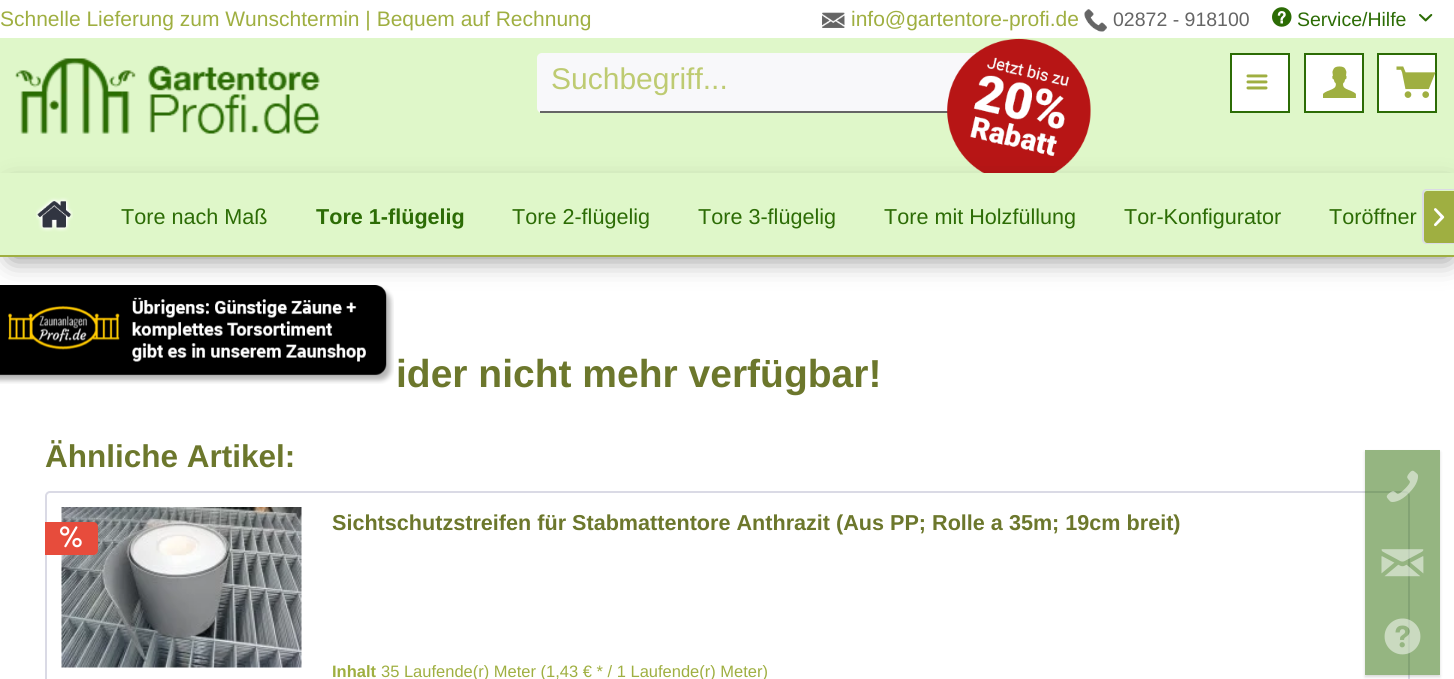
import math
import cairo



def rounded_rect(context, x, y, w, h, r):
    context.new_sub_path()
    for i, (u, v) in enumerate([(x + w - r, y + h - r), (x + r, y + h - r), (x + r, y + r), (x + w - r, y + r)]):
        context.arc(u, v, r, i * math.pi / 2, (i + 1) * math.pi / 2)
    context.close_path()


def draw_shadow(context, x, y, w, h, r, blur, alpha):
    context.push_group_with_content(cairo.Content.ALPHA)
    context.set_operator(cairo.Operator.SOURCE)
    for i in range(15, -16, -2):
        e = blur * i / 6
        if min(w, h) + 2 * e > 0:
            context.set_source_rgba(0, 0, 0, alpha * math.erfc((i - 1) / 8.5) / 2)
            rounded_rect(context, x - e, y - e, w + 2 * e, h + 2 * e, max(0, min(r + e + blur * .6, min(w, h) / 2 + e)))
            context.fill()
    context.mask(context.pop_group())


def draw_image(context, path, x, y, w, h):
    context.save()
    context.set_source_surface(cairo.ImageSurface.create_from_png(path), x, y)
    context.rectangle(x, y, w, h)
    context.fill()
    context.restore()


def draw(context):
    context.set_source_rgb(1, 1, 1)
    context.paint()
    context.set_source_rgb(223 / 255, 247 / 255, 201 / 255)
    context.rectangle(0, 38, 1454, 135)
    context.fill()
    draw_image(context, "images/1.png", 822, 12, 23, 16)
    draw_image(context, "images/2.png", 1084, 9, 23, 23)
    draw_image(context, "images/3.png", 1272, 7, 20, 20)
    draw_image(context, "images/4.png", 1419, 14, 14, 8)
    draw_image(context, "images/5.png", 15, 58, 305, 76)
    context.set_source_rgb(248 / 255, 248 / 255, 250 / 255)
    rounded_rect(context, 537, 53, 474, 60, 5)
    context.fill()
    context.set_source_rgb(101 / 255, 101 / 255, 101 / 255)
    context.rectangle(540, 111, 408, 2)
    context.fill()
    context.set_source_rgb(1, 1, 1)
    context.rectangle(1231, 54, 58, 58)
    context.fill_preserve()
    context.set_source_rgb(44 / 255, 108 / 255, 5 / 255)
    context.stroke()
    draw_image(context, "images/6.png", 1246, 74, 22, 16)
    context.set_source_rgb(1, 1, 1)
    context.rectangle(1305, 54, 58, 58)
    context.fill_preserve()
    context.set_source_rgb(44 / 255, 108 / 255, 5 / 255)
    context.stroke()
    draw_image(context, "images/7.png", 1323, 66, 33, 32)
    context.set_source_rgb(1, 1, 1)
    context.rectangle(1378, 54, 58, 58)
    context.fill_preserve()
    context.set_source_rgb(44 / 255, 108 / 255, 5 / 255)
    context.stroke()
    draw_image(context, "images/8.png", 1396, 66, 40, 32)
    draw_image(context, "images/9.png", 947, 38, 144, 135)
    draw_image(context, "images/10.png", 0, 285, 394, 99)
    context.set_source_rgb(0, 0, 0)
    draw_shadow(context, 12, 191, 1437, 66, 0, 13.5, 0.51)
    context.set_source_rgb(223 / 255, 247 / 255, 201 / 255)
    context.rectangle(0, 173, 1454, 82)
    context.fill()
    context.set_source_rgb(159 / 255, 175 / 255, 65 / 255)
    context.rectangle(0, 255, 1454, 2)
    context.fill()
    draw_image(context, "images/11.png", 36, 197, 37, 35)
    context.new_path()
    context.move_to(1427, 191)
    context.line_to(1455, 191)
    context.line_to(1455, 243)
    context.line_to(1427, 243)
    context.curve_to(1425.5, 243, 1424, 241.5, 1424, 240)
    context.line_to(1424, 194)
    context.curve_to(1424, 192.5, 1425.5, 191, 1427, 191)
    context.close_path()
    context.fill()
    context.set_source_rgb(218 / 255, 218 / 255, 229 / 255)
    context.set_fill_rule(cairo.FillRule.EVEN_ODD)
    context.new_path()
    context.move_to(1426, 189)
    context.line_to(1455, 189)
    context.line_to(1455, 244)
    context.line_to(1426, 244)
    context.curve_to(1424, 244, 1422, 242, 1422, 240)
    context.line_to(1422, 194)
    context.curve_to(1422, 191, 1424, 189, 1426, 189)
    context.close_path()
    context.move_to(1426, 190)
    context.line_to(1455, 190)
    context.line_to(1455, 243)
    context.line_to(1426, 243)
    context.curve_to(1425, 243, 1424, 242, 1424, 240)
    context.line_to(1424, 194)
    context.curve_to(1424, 192, 1425, 190, 1426, 190)
    context.close_path()
    context.fill()
    draw_image(context, "images/12.png", 1434, 208, 11, 19)
    rounded_rect(context, 46, 492, 1363, 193, 4)
    context.stroke()
    draw_image(context, "images/14.png", 61, 507, 241, 161)
    context.set_source_rgb(231 / 255, 76 / 255, 60 / 255)
    context.new_path()
    context.move_to(45, 522)
    context.line_to(93, 522)
    context.curve_to(96, 522, 98, 524, 98, 527)
    context.line_to(98, 550)
    context.curve_to(98, 553, 96, 555, 93, 555)
    context.line_to(45, 555)
    context.close_path()
    context.fill()
    draw_image(context, "images/13.png", 60, 526, 22, 22)
    context.save()
    context.new_path()
    context.move_to(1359, 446)
    context.line_to(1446, 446)
    context.line_to(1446, 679)
    context.line_to(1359, 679)
    context.close_path()
    context.move_to(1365, 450)
    context.line_to(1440, 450)
    context.line_to(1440, 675)
    context.line_to(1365, 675)
    context.close_path()
    context.clip()
    context.set_source_rgb(0, 0, 0)
    draw_shadow(context, 1365, 452, 75, 225, 0, 1.5, 0.15)
    context.restore()
    context.set_source_rgba(44 / 255, 108 / 255, 5 / 255, 0.5)
    context.rectangle(1365, 450, 75, 225)
    context.fill()
    draw_image(context, "images/15.png", 1386, 470, 32, 32)
    draw_image(context, "images/16.png", 1381, 549, 43, 28)
    draw_image(context, "images/17.png", 1384, 618, 37, 37)
    context.select_font_face("Liberation Sans")
    context.set_font_size(21)
    context.set_source_rgb(159 / 255, 175 / 255, 65 / 255)
    context.move_to(0, 26)
    context.show_text("Schnelle Lieferung zum Wunschtermin | Bequem auf Rechnung")
    context.move_to(851, 26)
    context.show_text("info@gartentore-profi.de")
    context.set_font_size(19.5)
    context.set_source_rgb(101 / 255, 101 / 255, 101 / 255)
    context.move_to(1113, 26)
    context.show_text("02872 - 918100")
    context.set_source_rgb(44 / 255, 108 / 255, 5 / 255)
    context.move_to(1297, 26)
    context.show_text("Service/Hilfe")
    context.set_font_size(30)
    context.set_source_rgb(190 / 255, 203 / 255, 114 / 255)
    context.move_to(551, 89)
    context.show_text("Suchbegriff...")
    context.set_font_size(21.6)
    context.set_source_rgb(44 / 255, 108 / 255, 5 / 255)
    context.move_to(121, 224)
    context.show_text("Tore nach Maß")
    context.select_font_face("Liberation Sans", cairo.FontSlant.NORMAL, cairo.FontWeight.BOLD)
    context.move_to(316, 224)
    context.show_text("Tore 1-flügelig")
    context.select_font_face("Liberation Sans")
    context.move_to(512, 224)
    context.show_text("Tore 2-flügelig")
    context.move_to(698, 224)
    context.show_text("Tore 3-flügelig")
    context.move_to(884, 224)
    context.show_text("Tore mit Holzfüllung")
    context.move_to(1124, 224)
    context.show_text("Tor-Konfigurator")
    context.move_to(1329, 224)
    context.show_text("Toröffner")
    context.select_font_face("Liberation Sans", cairo.FontSlant.NORMAL, cairo.FontWeight.BOLD)
    context.set_font_size(39)
    context.set_source_rgb(108 / 255, 119 / 255, 44 / 255)
    context.move_to(396, 387)
    context.show_text("ider nicht mehr verfügbar!")
    context.set_font_size(31.5)
    context.move_to(45, 467)
    context.show_text("Ähnliche Artikel:")
    context.set_font_size(21.6)
    context.move_to(332, 530)
    context.show_text("Sichtschutzstreifen für Stabmattentore Anthrazit (Aus PP; Rolle a 35m; 19cm breit)")
    context.set_font_size(16.5)
    context.set_source_rgb(159 / 255, 175 / 255, 65 / 255)
    context.move_to(332, 677)
    context.show_text("Inhalt")
    context.select_font_face("Liberation Sans")
    context.move_to(381, 677)
    context.show_text("35 Laufende(r) Meter (1,43 € * / 1 Laufende(r) Meter)")


surface = cairo.ImageSurface(cairo.Format.RGB24, 1454, 679)
context = cairo.Context(surface)
options = cairo.FontOptions()
options.set_hint_metrics(cairo.HintMetrics.OFF)
options.set_hint_style(cairo.HintStyle.NONE)
context.set_font_options(options)
context.set_miter_limit(4)
draw(context)
surface.write_to_png("out.png")
